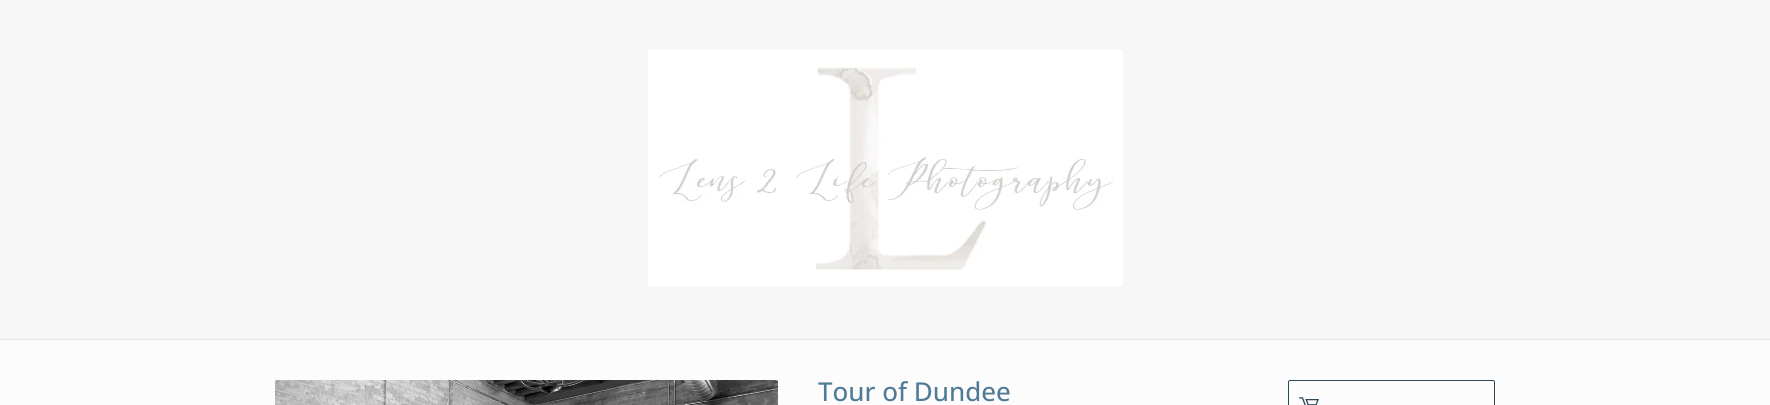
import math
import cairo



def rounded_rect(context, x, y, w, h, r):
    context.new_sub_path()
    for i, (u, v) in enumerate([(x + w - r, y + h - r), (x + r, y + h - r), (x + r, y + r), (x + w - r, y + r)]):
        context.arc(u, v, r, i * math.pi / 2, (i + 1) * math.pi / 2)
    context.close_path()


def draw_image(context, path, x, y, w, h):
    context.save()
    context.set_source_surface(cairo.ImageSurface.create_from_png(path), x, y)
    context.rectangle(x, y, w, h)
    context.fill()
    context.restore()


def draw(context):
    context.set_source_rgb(252 / 255, 252 / 255, 252 / 255)
    context.paint()
    context.set_source_rgb(247 / 255, 247 / 255, 247 / 255)
    context.rectangle(0, 0, 1770, 339)
    context.fill()
    context.set_source_rgb(229 / 255, 229 / 255, 229 / 255)
    context.rectangle(0, 339, 1770, 1)
    context.fill()
    draw_image(context, "images/1.png", 648, 50, 475, 236)
    draw_image(context, "images/2.png", 275, 380, 503, 25)
    rounded_rect(context, 1288.5, 380.5, 206, 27, 1.5)
    context.set_source_rgb(43 / 255, 71 / 255, 89 / 255)
    context.set_line_width(1)
    context.stroke()
    draw_image(context, "images/3.png", 1299, 397, 20, 8)
    context.select_font_face("Open Sans Medium")
    context.set_font_size(26)
    context.set_source_rgb(80 / 255, 123 / 255, 150 / 255)
    context.move_to(818, 401)
    context.show_text("Tour of Dundee")


surface = cairo.ImageSurface(cairo.Format.RGB24, 1770, 405)
context = cairo.Context(surface)
options = cairo.FontOptions()
options.set_hint_metrics(cairo.HintMetrics.OFF)
options.set_hint_style(cairo.HintStyle.NONE)
context.set_font_options(options)
context.set_miter_limit(4)
draw(context)
surface.write_to_png("out.png")
